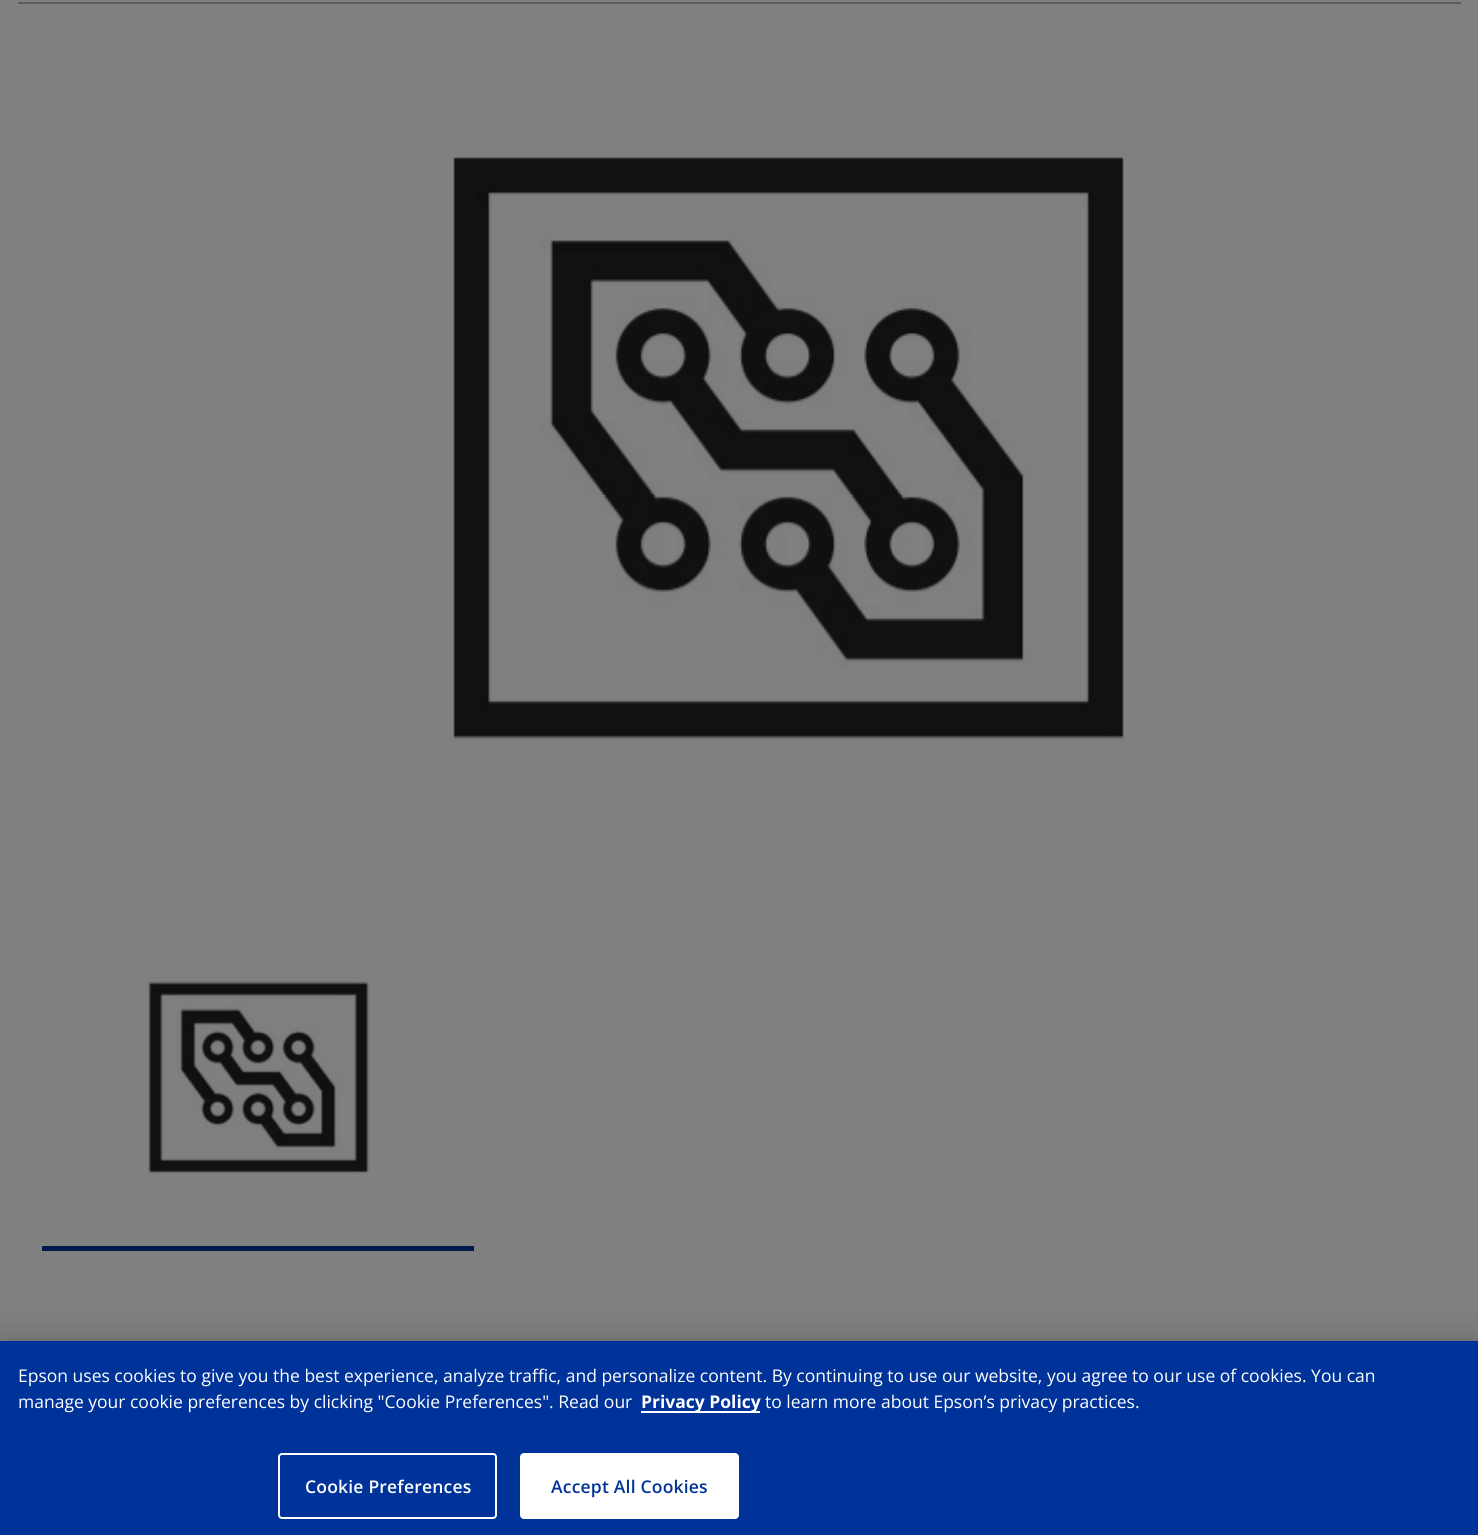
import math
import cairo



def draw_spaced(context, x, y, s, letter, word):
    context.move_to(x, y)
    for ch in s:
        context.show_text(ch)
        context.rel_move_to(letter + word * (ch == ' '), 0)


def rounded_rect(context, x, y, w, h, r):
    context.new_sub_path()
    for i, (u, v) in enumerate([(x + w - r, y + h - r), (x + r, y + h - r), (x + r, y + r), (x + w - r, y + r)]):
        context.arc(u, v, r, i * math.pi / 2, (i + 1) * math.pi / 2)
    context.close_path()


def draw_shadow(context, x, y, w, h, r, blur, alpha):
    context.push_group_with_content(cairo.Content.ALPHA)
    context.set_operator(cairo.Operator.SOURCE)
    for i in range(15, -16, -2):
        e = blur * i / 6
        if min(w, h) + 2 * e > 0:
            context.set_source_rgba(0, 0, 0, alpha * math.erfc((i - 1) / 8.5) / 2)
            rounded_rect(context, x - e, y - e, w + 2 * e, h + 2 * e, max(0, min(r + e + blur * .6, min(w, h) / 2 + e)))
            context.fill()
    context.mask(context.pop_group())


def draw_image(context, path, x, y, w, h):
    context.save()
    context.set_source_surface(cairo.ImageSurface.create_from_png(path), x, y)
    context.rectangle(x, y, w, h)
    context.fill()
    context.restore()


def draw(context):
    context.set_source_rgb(128 / 255, 128 / 255, 128 / 255)
    context.paint()
    context.set_source_rgb(91 / 255, 92 / 255, 93 / 255)
    context.rectangle(18, 2, 1443, 2)
    context.fill()
    draw_image(context, "images/1.png", 453, 157, 671, 585)
    context.set_source_rgb(0, 26 / 255, 77 / 255)
    context.rectangle(42, 1246, 432, 5)
    context.fill()
    draw_image(context, "images/2.png", 148, 981, 222, 193)
    context.set_source_rgb(0, 0, 0)
    draw_shadow(context, 0, 1341, 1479, 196, 0, 16, 0.2)
    context.set_source_rgb(0, 51 / 255, 153 / 255)
    context.rectangle(0, 1341, 1478, 194)
    context.fill()
    context.set_source_rgb(1, 1, 1)
    context.rectangle(641, 1411, 119, 2)
    context.fill()
    rounded_rect(context, 279, 1454, 217, 64, 3)
    context.stroke()
    rounded_rect(context, 521, 1454, 217, 64, 3)
    context.fill_preserve()
    context.stroke()
    context.select_font_face("Open Sans")
    context.set_font_size(17.5)
    context.move_to(18, 1382)
    context.show_text("Epson uses cookies to give you the best experience, analyze traffic, and personalize content. By continuing to use our website, you agree to our use of cookies. You can")
    context.move_to(18, 1408)
    context.show_text("manage your cookie preferences by clicking \"Cookie Preferences\". Read our")
    context.select_font_face("Open Sans", cairo.FontSlant.NORMAL, cairo.FontWeight.BOLD)
    context.move_to(641, 1408)
    context.show_text("Privacy Policy")
    context.select_font_face("Open Sans")
    context.move_to(765, 1408)
    context.show_text("to learn more about Epson’s privacy practices.")
    context.select_font_face("Open Sans SemiBold")
    draw_spaced(context, 305, 1493, "Cookie Preferences", 0.2, 0)
    context.set_source_rgb(0, 51 / 255, 153 / 255)
    draw_spaced(context, 551, 1493, "Accept All Cookies", 0.2, 0)


surface = cairo.ImageSurface(cairo.Format.RGB24, 1478, 1535)
context = cairo.Context(surface)
options = cairo.FontOptions()
options.set_hint_metrics(cairo.HintMetrics.OFF)
options.set_hint_style(cairo.HintStyle.NONE)
context.set_font_options(options)
context.set_miter_limit(4)
draw(context)
surface.write_to_png("out.png")
